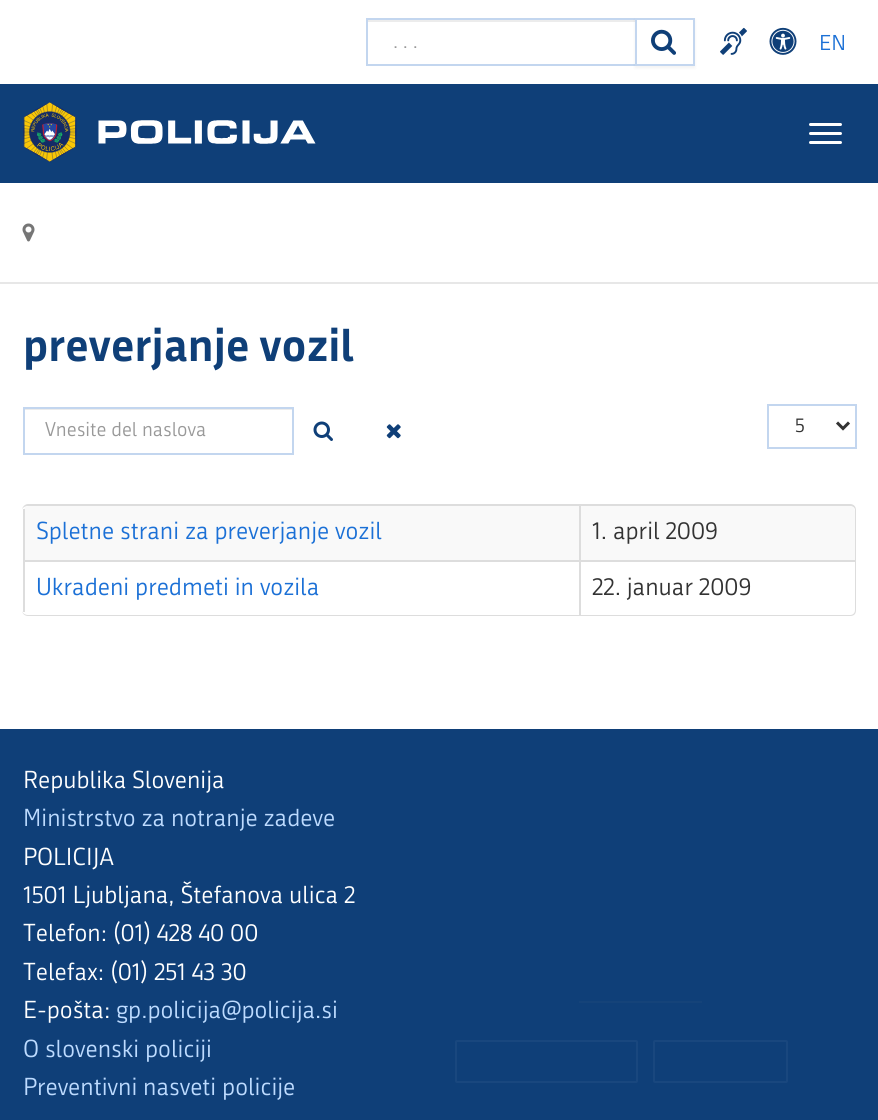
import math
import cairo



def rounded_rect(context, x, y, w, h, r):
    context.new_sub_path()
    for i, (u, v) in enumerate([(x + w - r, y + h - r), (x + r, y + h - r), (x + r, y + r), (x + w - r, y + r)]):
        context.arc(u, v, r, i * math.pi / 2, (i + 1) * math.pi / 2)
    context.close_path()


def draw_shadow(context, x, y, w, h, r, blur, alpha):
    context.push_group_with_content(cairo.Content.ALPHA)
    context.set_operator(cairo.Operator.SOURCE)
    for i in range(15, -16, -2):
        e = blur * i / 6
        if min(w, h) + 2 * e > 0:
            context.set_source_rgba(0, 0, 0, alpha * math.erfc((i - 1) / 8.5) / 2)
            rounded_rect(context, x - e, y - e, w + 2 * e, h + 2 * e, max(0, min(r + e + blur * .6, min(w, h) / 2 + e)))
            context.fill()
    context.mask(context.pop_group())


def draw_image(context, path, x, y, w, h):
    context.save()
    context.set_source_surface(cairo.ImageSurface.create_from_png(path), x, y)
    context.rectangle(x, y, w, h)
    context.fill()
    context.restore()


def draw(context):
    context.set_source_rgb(1, 1, 1)
    context.paint()
    context.set_source_rgb(236 / 255, 236 / 255, 236 / 255)
    context.rectangle(368, 20, 268, 2)
    context.fill()
    context.rectangle(367, 19, 270, 46)
    context.set_source_rgb(195 / 255, 214 / 255, 239 / 255)
    context.stroke()
    context.set_source_rgb(0, 0, 0)
    draw_shadow(context, 635, 20, 60, 48, 0, 1.5, 0.05)
    context.set_source_rgb(1, 1, 1)
    context.rectangle(636, 19, 58, 46)
    context.fill_preserve()
    context.set_source_rgb(195 / 255, 214 / 255, 239 / 255)
    context.stroke()
    draw_image(context, "images/1.png", 651, 29, 25, 26)
    draw_image(context, "images/2.png", 720, 27, 27, 28)
    draw_image(context, "images/3.png", 769, 27, 28, 28)
    context.set_source_rgb(15 / 255, 63 / 255, 120 / 255)
    context.rectangle(0, 84, 878, 99)
    context.fill()
    draw_image(context, "images/4.png", 23, 101, 293, 62)
    context.set_source_rgb(1, 1, 1)
    rounded_rect(context, 809, 123, 33, 3, 1.5)
    context.fill()
    rounded_rect(context, 809, 132, 33, 3, 1.5)
    context.fill()
    rounded_rect(context, 809, 141, 33, 3, 1.5)
    context.fill()
    context.set_source_rgb(231 / 255, 231 / 255, 231 / 255)
    context.rectangle(0, 282, 878, 2)
    context.fill()
    draw_image(context, "images/5.png", 22, 223, 13, 19)
    context.set_source_rgb(236 / 255, 236 / 255, 236 / 255)
    context.rectangle(24, 409, 269, 1)
    context.fill()
    context.rectangle(24, 408, 269, 46)
    context.set_source_rgb(195 / 255, 214 / 255, 239 / 255)
    context.stroke()
    draw_image(context, "images/6.png", 313, 421, 20, 20)
    draw_image(context, "images/7.png", 386, 424, 15, 15)
    context.rectangle(768, 405, 88, 43)
    context.stroke()
    context.new_path()
    context.move_to(837, 422.5)
    context.line_to(843, 428.5)
    context.line_to(849, 422.5)
    context.set_source_rgb(51 / 255, 51 / 255, 51 / 255)
    context.set_line_width(3)
    context.stroke()
    context.set_source_rgb(221 / 255, 221 / 255, 221 / 255)
    context.set_fill_rule(cairo.FillRule.EVEN_ODD)
    context.new_path()
    context.move_to(28, 504)
    context.line_to(850, 504)
    context.curve_to(854, 504, 856, 507, 856, 510)
    context.line_to(856, 610)
    context.curve_to(856, 614, 854, 616, 850, 616)
    context.line_to(28, 616)
    context.curve_to(25, 616, 22, 614, 22, 610)
    context.line_to(22, 510)
    context.curve_to(22, 507, 25, 504, 28, 504)
    context.close_path()
    context.move_to(28, 506)
    context.line_to(850, 506)
    context.curve_to(853, 506, 855, 508, 855, 510)
    context.line_to(855, 610)
    context.curve_to(855, 613, 853, 615, 850, 615)
    context.line_to(28, 615)
    context.curve_to(25, 615, 22, 613, 22, 610)
    context.line_to(22, 510)
    context.curve_to(22, 508, 25, 506, 28, 506)
    context.close_path()
    context.fill()
    context.set_source_rgb(249 / 255, 249 / 255, 249 / 255)
    context.new_path()
    context.move_to(29, 506)
    context.line_to(579, 506)
    context.line_to(579, 560)
    context.line_to(23, 560)
    context.line_to(23, 512)
    context.curve_to(23, 508.5, 25.5, 506, 29, 506)
    context.close_path()
    context.fill()
    context.set_source_rgb(221 / 255, 221 / 255, 221 / 255)
    context.rectangle(23, 509, 2, 51)
    context.fill()
    context.set_source_rgb(249 / 255, 249 / 255, 249 / 255)
    context.new_path()
    context.move_to(579, 506)
    context.line_to(849, 506)
    context.curve_to(852.5, 506, 855, 508.5, 855, 512)
    context.line_to(855, 560)
    context.line_to(579, 560)
    context.close_path()
    context.fill()
    context.set_source_rgb(221 / 255, 221 / 255, 221 / 255)
    context.rectangle(579, 506, 2, 54)
    context.fill()
    context.rectangle(23, 560, 832, 2)
    context.fill()
    context.rectangle(23, 560, 2, 52)
    context.fill()
    context.rectangle(579, 560, 2, 55)
    context.fill()
    context.set_source_rgb(15 / 255, 63 / 255, 120 / 255)
    context.rectangle(0, 729, 878, 391)
    context.fill()
    context.set_source_rgb(21 / 255, 67 / 255, 121 / 255)
    context.rectangle(579, 1001, 123, 2)
    context.fill()
    rounded_rect(context, 456, 1041, 181, 41, 1)
    context.set_source_rgb(25 / 255, 71 / 255, 126 / 255)
    context.set_line_width(2)
    context.stroke()
    rounded_rect(context, 654, 1041, 133, 41, 1)
    context.stroke()
    context.select_font_face("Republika")
    context.set_font_size(19.5)
    context.set_source_rgb(153 / 255, 153 / 255, 153 / 255)
    context.move_to(393, 48)
    context.show_text(". . .")
    context.set_font_size(21)
    context.set_source_rgb(27 / 255, 112 / 255, 214 / 255)
    context.move_to(819, 50)
    context.show_text("EN")
    context.select_font_face("Republika", cairo.FontSlant.NORMAL, cairo.FontWeight.BOLD)
    context.set_font_size(45)
    context.set_source_rgb(15 / 255, 63 / 255, 120 / 255)
    context.move_to(23, 361)
    context.show_text("preverjanje vozil")
    context.select_font_face("Republika")
    context.set_font_size(19.5)
    context.set_source_rgb(153 / 255, 153 / 255, 153 / 255)
    context.move_to(45, 436)
    context.show_text("Vnesite del naslova")
    context.set_source_rgb(51 / 255, 51 / 255, 51 / 255)
    context.move_to(795, 432)
    context.show_text("5")
    context.set_font_size(24)
    context.set_source_rgb(27 / 255, 112 / 255, 214 / 255)
    context.move_to(36, 539)
    context.show_text("Spletne strani za preverjanje vozil")
    context.set_source_rgb(51 / 255, 51 / 255, 51 / 255)
    context.move_to(592, 539)
    context.show_text("1. april 2009")
    context.set_source_rgb(27 / 255, 112 / 255, 214 / 255)
    context.move_to(36, 595)
    context.show_text("Ukradeni predmeti in vozila")
    context.set_source_rgb(51 / 255, 51 / 255, 51 / 255)
    context.move_to(592, 595)
    context.show_text("22. januar 2009")
    context.set_source_rgb(1, 1, 1)
    context.move_to(23, 788)
    context.show_text("Republika Slovenija")
    context.set_source_rgb(189 / 255, 219 / 255, 1)
    context.move_to(23, 826)
    context.show_text("Ministrstvo za notranje zadeve")
    context.set_source_rgb(1, 1, 1)
    context.move_to(23, 865)
    context.show_text("POLICIJA")
    context.move_to(23, 903)
    context.show_text("1501 Ljubljana, Štefanova ulica 2")
    context.move_to(23, 941)
    context.show_text("Telefon: (01) 428 40 00")
    context.move_to(23, 980)
    context.show_text("Telefax: (01) 251 43 30")
    context.move_to(23, 1018)
    context.show_text("E-pošta:")
    context.set_source_rgb(189 / 255, 219 / 255, 1)
    context.move_to(116, 1018)
    context.show_text("gp.policija@policija.si")
    context.move_to(23, 1057)
    context.show_text("O slovenski policiji")
    context.move_to(23, 1095)
    context.show_text("Preventivni nasveti policije")


surface = cairo.ImageSurface(cairo.Format.RGB24, 878, 1120)
context = cairo.Context(surface)
options = cairo.FontOptions()
options.set_hint_metrics(cairo.HintMetrics.OFF)
options.set_hint_style(cairo.HintStyle.NONE)
context.set_font_options(options)
context.set_miter_limit(4)
draw(context)
surface.write_to_png("out.png")
